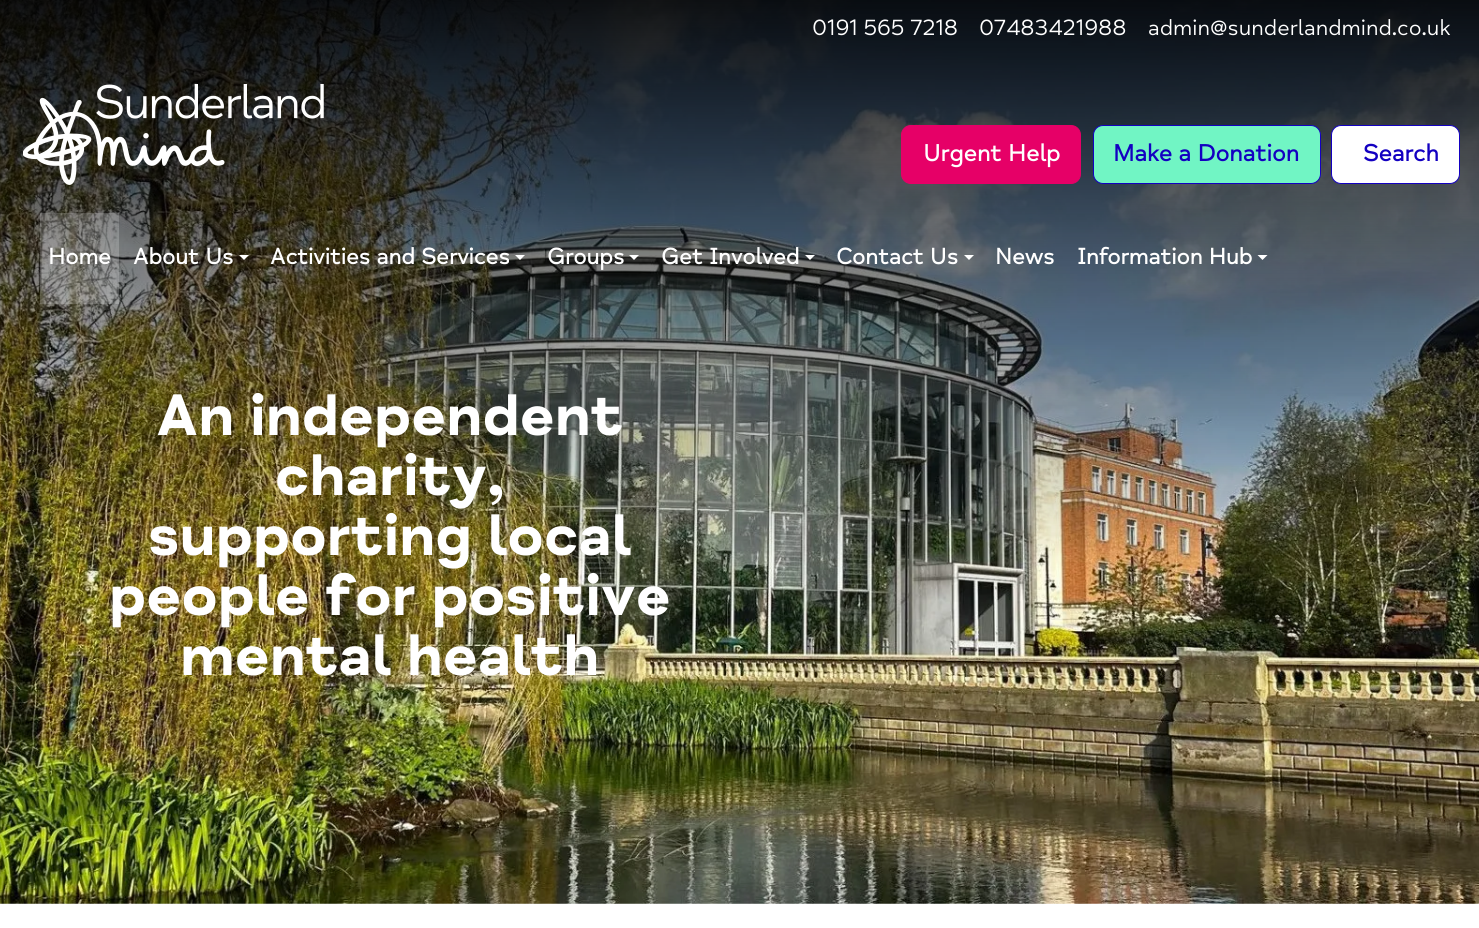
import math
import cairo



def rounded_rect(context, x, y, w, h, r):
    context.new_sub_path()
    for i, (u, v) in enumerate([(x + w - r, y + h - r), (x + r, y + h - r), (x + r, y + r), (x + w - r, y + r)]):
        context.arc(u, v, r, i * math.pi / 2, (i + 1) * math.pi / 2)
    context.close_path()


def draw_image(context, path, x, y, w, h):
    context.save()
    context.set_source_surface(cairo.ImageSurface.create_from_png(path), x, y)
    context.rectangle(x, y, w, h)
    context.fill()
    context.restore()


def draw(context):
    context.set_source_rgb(1, 1, 1)
    context.paint()
    draw_image(context, "images/2.png", 0, 0, 1479, 904)
    draw_image(context, "images/1.png", 23, 84, 301, 101)
    context.set_source_rgb(230 / 255, 0, 103 / 255)
    rounded_rect(context, 901.5, 125.5, 179, 58, 9.5)
    context.fill_preserve()
    context.set_line_width(1)
    context.stroke()
    context.set_source_rgb(113 / 255, 245 / 255, 196 / 255)
    rounded_rect(context, 1093.5, 125.5, 227, 58, 9.5)
    context.fill_preserve()
    context.set_source_rgb(19 / 255, 0, 193 / 255)
    context.stroke()
    context.set_source_rgb(1, 1, 1)
    rounded_rect(context, 1331.5, 125.5, 128, 58, 9.5)
    context.fill_preserve()
    context.set_source_rgb(19 / 255, 0, 193 / 255)
    context.stroke()
    context.set_source_rgba(1, 1, 1, 0.2)
    context.rectangle(40, 213, 79, 91)
    context.fill()
    context.set_source_rgb(1, 1, 1)
    context.new_path()
    context.move_to(239, 255)
    context.line_to(249, 255)
    context.line_to(244, 260)
    context.close_path()
    context.fill()
    context.new_path()
    context.move_to(515, 255)
    context.line_to(525, 255)
    context.line_to(520, 260)
    context.close_path()
    context.fill()
    context.new_path()
    context.move_to(629, 255)
    context.line_to(639, 255)
    context.line_to(634, 260)
    context.close_path()
    context.fill()
    context.new_path()
    context.move_to(805, 255)
    context.line_to(815, 255)
    context.line_to(810, 260)
    context.close_path()
    context.fill()
    context.new_path()
    context.move_to(964, 255)
    context.line_to(974, 255)
    context.line_to(969, 260)
    context.close_path()
    context.fill()
    context.new_path()
    context.move_to(1257.5, 255)
    context.line_to(1267.5, 255)
    context.line_to(1262.5, 260)
    context.close_path()
    context.fill()
    context.select_font_face("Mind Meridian")
    context.set_font_size(22.5)
    context.move_to(812, 35)
    context.show_text("0191 565 7218")
    context.move_to(979, 35)
    context.show_text("07483421988")
    context.move_to(1148, 35)
    context.show_text("admin@sunderlandmind.co.uk")
    context.select_font_face("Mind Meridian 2", cairo.FontSlant.NORMAL, cairo.FontWeight.BOLD)
    context.set_font_size(24)
    context.move_to(923, 161)
    context.show_text("Urgent Help")
    context.set_source_rgb(19 / 255, 0, 193 / 255)
    context.move_to(1113, 161)
    context.show_text("Make a Donation")
    context.move_to(1363, 161)
    context.show_text("Search")
    context.set_font_size(23)
    context.set_source_rgb(1, 1, 1)
    context.move_to(48, 264)
    context.show_text("Home")
    context.move_to(133, 264)
    context.show_text("About Us")
    context.move_to(270, 264)
    context.show_text("Activities and Services")
    context.move_to(547, 264)
    context.show_text("Groups")
    context.move_to(661, 264)
    context.show_text("Get Involved")
    context.move_to(836, 264)
    context.show_text("Contact Us")
    context.move_to(995, 264)
    context.show_text("News")
    context.move_to(1077, 264)
    context.show_text("Information Hub")
    context.select_font_face("Mind Meridian", cairo.FontSlant.NORMAL, cairo.FontWeight.BOLD)
    context.set_font_size(60)
    context.move_to(156, 435)
    context.show_text("An independent")
    context.move_to(275, 495)
    context.show_text("charity,")
    context.move_to(148, 555)
    context.show_text("supporting local")
    context.move_to(109, 615)
    context.show_text("people for positive")
    context.move_to(180, 675)
    context.show_text("mental health")


surface = cairo.ImageSurface(cairo.Format.RGB24, 1479, 928)
context = cairo.Context(surface)
options = cairo.FontOptions()
options.set_hint_metrics(cairo.HintMetrics.OFF)
options.set_hint_style(cairo.HintStyle.NONE)
context.set_font_options(options)
context.set_miter_limit(4)
draw(context)
surface.write_to_png("out.png")
